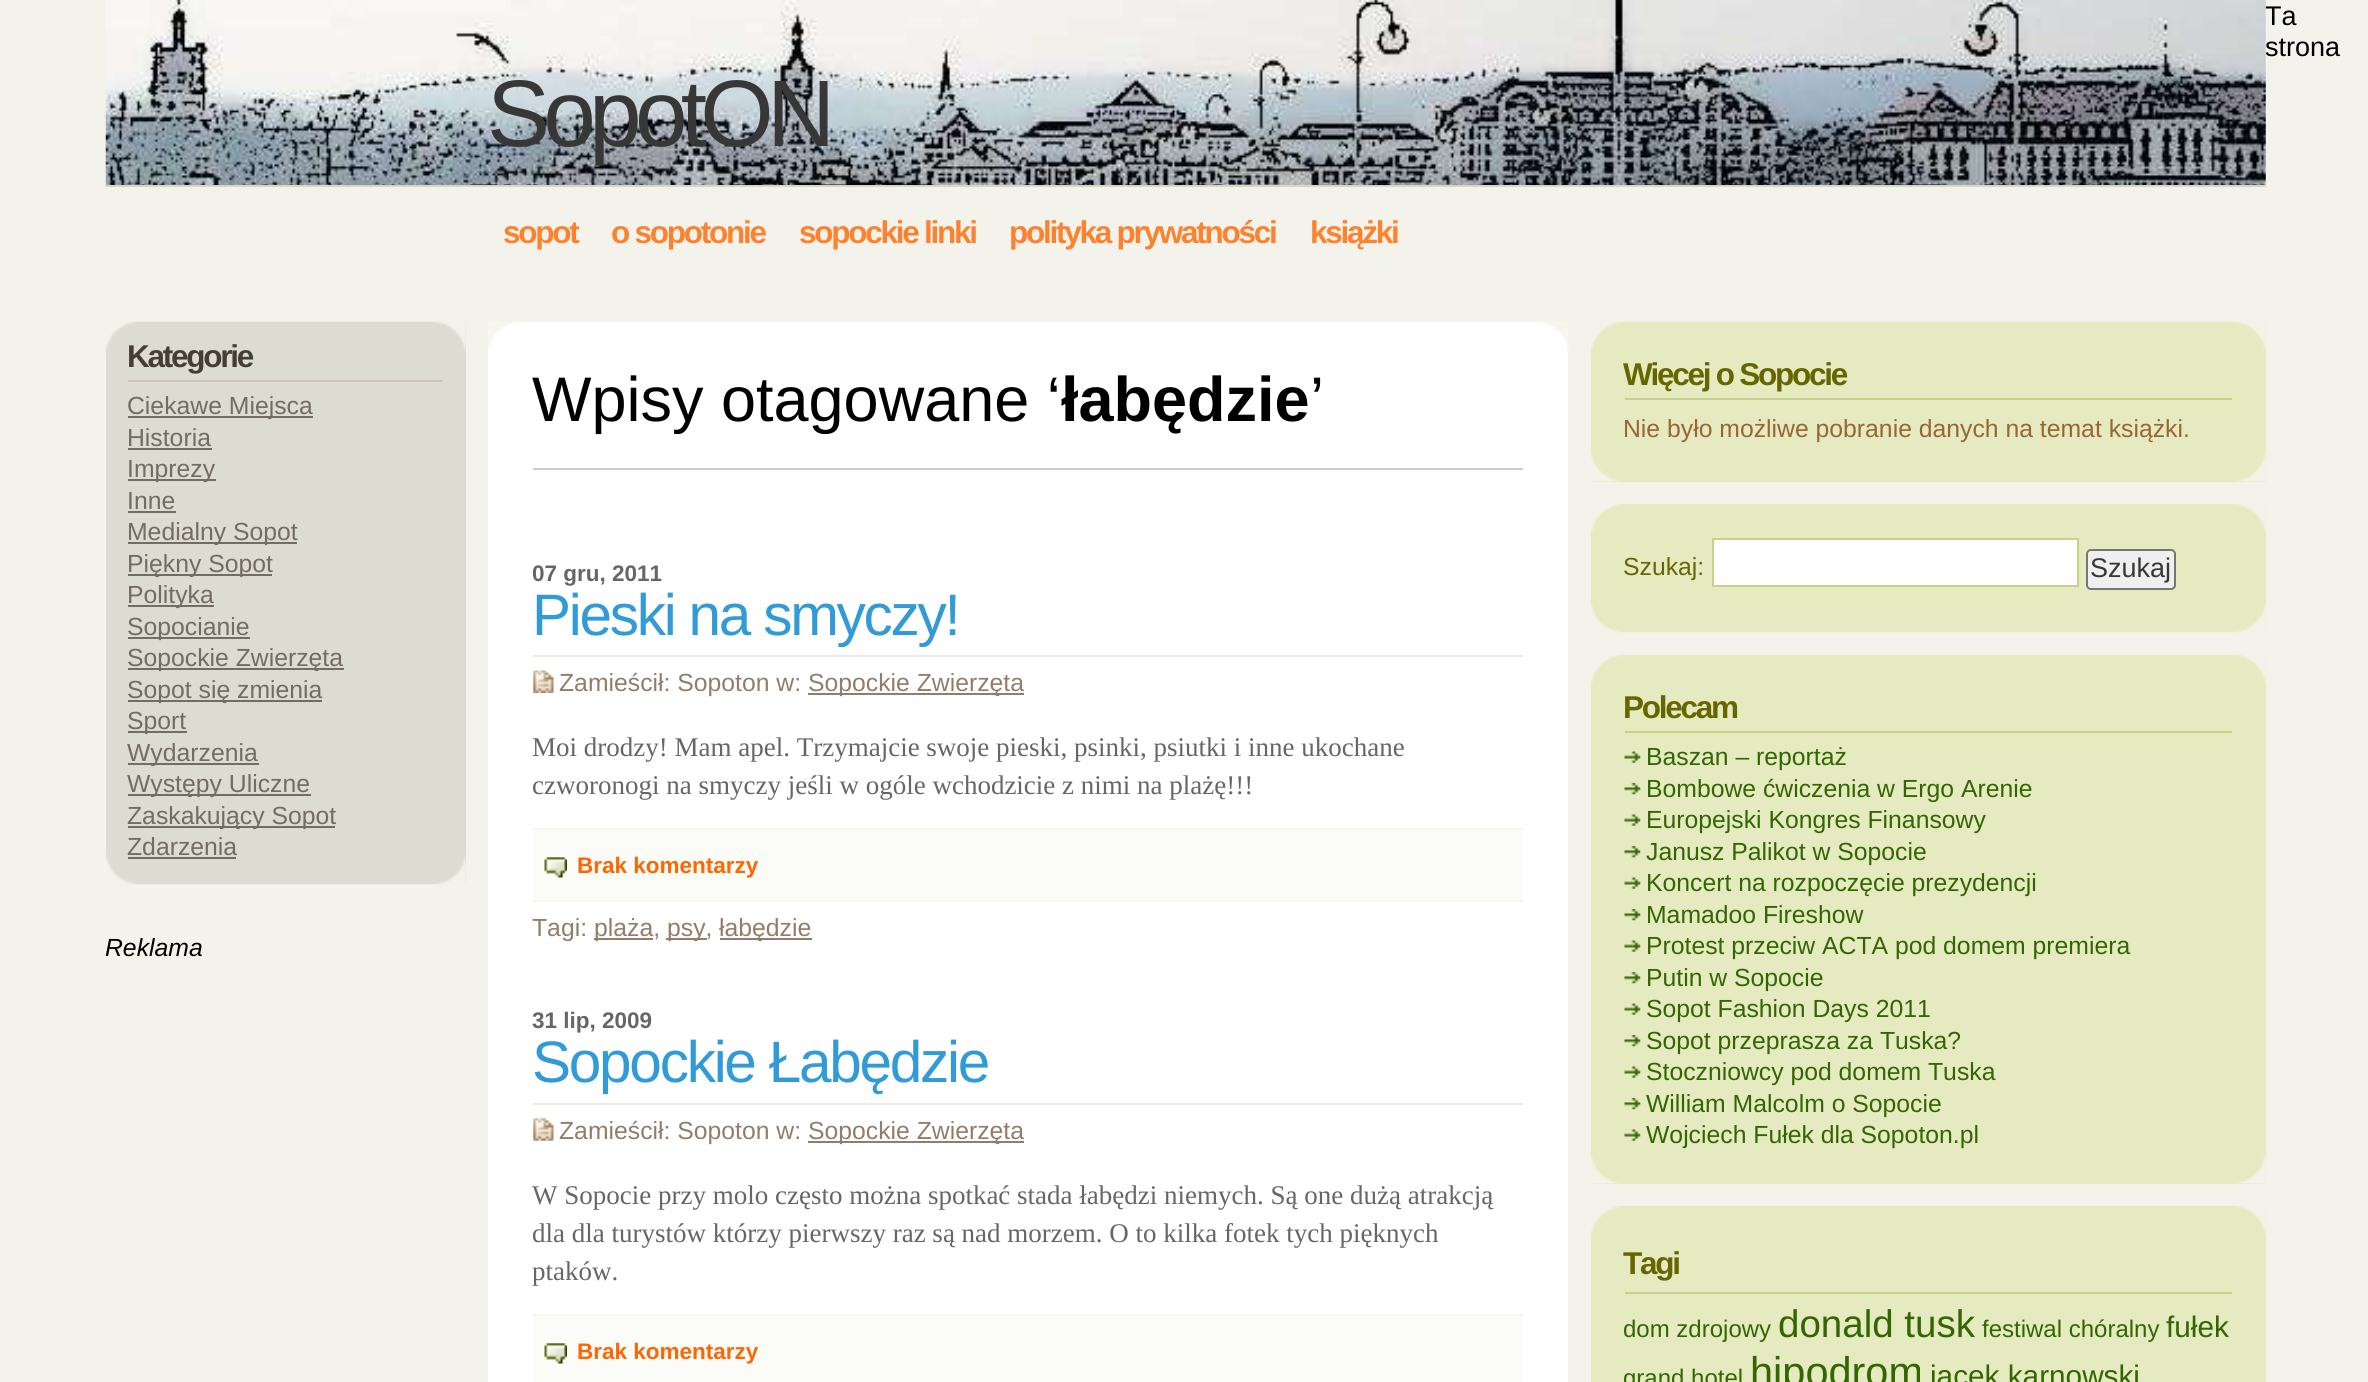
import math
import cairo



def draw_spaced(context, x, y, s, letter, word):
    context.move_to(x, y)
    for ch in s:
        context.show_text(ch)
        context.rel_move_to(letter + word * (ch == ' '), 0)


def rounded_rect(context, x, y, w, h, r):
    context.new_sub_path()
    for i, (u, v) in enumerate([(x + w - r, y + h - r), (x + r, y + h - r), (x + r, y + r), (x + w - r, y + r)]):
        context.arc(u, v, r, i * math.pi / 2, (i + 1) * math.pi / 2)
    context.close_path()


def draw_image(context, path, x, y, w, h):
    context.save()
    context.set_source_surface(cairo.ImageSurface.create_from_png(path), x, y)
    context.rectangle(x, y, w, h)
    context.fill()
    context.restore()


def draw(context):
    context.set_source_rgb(244 / 255, 243 / 255, 235 / 255)
    context.paint()
    context.set_source_rgb(221 / 255, 220 / 255, 210 / 255)
    context.rectangle(106, 322, 360, 562)
    context.fill()
    draw_image(context, "images/2.png", 105, 321, 361, 34)
    draw_image(context, "images/3.png", 105, 851, 361, 34)
    context.set_source_rgb(206 / 255, 197 / 255, 185 / 255)
    context.rectangle(128, 380, 315, 2)
    context.fill()
    context.set_source_rgb(115 / 255, 108 / 255, 98 / 255)
    context.rectangle(128, 416, 185, 2)
    context.fill()
    context.rectangle(128, 448, 84, 2)
    context.fill()
    context.rectangle(128, 479, 88, 2)
    context.fill()
    context.rectangle(128, 511, 48, 2)
    context.fill()
    context.rectangle(128, 542, 169, 2)
    context.fill()
    context.rectangle(128, 574, 144, 2)
    context.fill()
    context.rectangle(128, 605, 86, 2)
    context.fill()
    context.rectangle(128, 637, 122, 2)
    context.fill()
    context.rectangle(128, 668, 216, 2)
    context.fill()
    context.rectangle(128, 700, 194, 2)
    context.fill()
    context.rectangle(128, 731, 59, 2)
    context.fill()
    context.rectangle(128, 763, 131, 2)
    context.fill()
    context.rectangle(128, 794, 183, 2)
    context.fill()
    context.rectangle(128, 826, 207, 2)
    context.fill()
    context.rectangle(128, 857, 108, 2)
    context.fill()
    context.set_source_rgb(1, 1, 1)
    context.rectangle(488, 322, 1080, 1060)
    context.fill()
    draw_image(context, "images/4.png", 488, 321, 1081, 34)
    context.set_source_rgb(204 / 255, 204 / 255, 204 / 255)
    context.rectangle(533, 468, 990, 2)
    context.fill()
    draw_image(context, "images/5.png", 533, 670, 21, 23)
    context.set_source_rgb(235 / 255, 234 / 255, 221 / 255)
    context.rectangle(533, 655, 990, 2)
    context.fill()
    context.set_source_rgb(145 / 255, 125 / 255, 105 / 255)
    context.rectangle(808, 693, 216, 2)
    context.fill()
    context.set_source_rgb(251 / 255, 251 / 255, 248 / 255)
    context.rectangle(533, 830, 990, 70)
    context.fill()
    context.set_source_rgb(247 / 255, 246 / 255, 240 / 255)
    context.rectangle(533, 828, 990, 2)
    context.fill()
    context.rectangle(533, 900, 990, 2)
    context.fill()
    draw_image(context, "images/6.png", 544, 857, 23, 21)
    context.set_source_rgb(145 / 255, 125 / 255, 105 / 255)
    context.rectangle(594, 938, 59, 2)
    context.fill()
    context.rectangle(666, 938, 41, 2)
    context.fill()
    context.rectangle(720, 938, 92, 2)
    context.fill()
    draw_image(context, "images/7.png", 533, 1118, 21, 23)
    context.set_source_rgb(235 / 255, 234 / 255, 221 / 255)
    context.rectangle(533, 1103, 990, 2)
    context.fill()
    context.set_source_rgb(145 / 255, 125 / 255, 105 / 255)
    context.rectangle(808, 1141, 216, 2)
    context.fill()
    context.set_source_rgb(251 / 255, 251 / 255, 248 / 255)
    context.rectangle(533, 1316, 990, 66)
    context.fill()
    context.set_source_rgb(247 / 255, 246 / 255, 240 / 255)
    context.rectangle(533, 1314, 990, 2)
    context.fill()
    draw_image(context, "images/6.png", 544, 1343, 23, 21)
    context.set_source_rgb(229 / 255, 234 / 255, 192 / 255)
    context.rectangle(1591, 322, 675, 160)
    context.fill()
    draw_image(context, "images/8.png", 1590, 448, 676, 34)
    draw_image(context, "images/9.png", 1590, 321, 676, 35)
    context.set_source_rgb(200 / 255, 209 / 255, 138 / 255)
    context.rectangle(1625, 398, 607, 2)
    context.fill()
    context.set_source_rgb(229 / 255, 234 / 255, 192 / 255)
    context.rectangle(1591, 504, 675, 128)
    context.fill()
    draw_image(context, "images/10.png", 1590, 598, 676, 35)
    draw_image(context, "images/11.png", 1590, 504, 676, 34)
    context.set_source_rgb(1, 1, 1)
    context.rectangle(1713, 539, 365, 47)
    context.fill_preserve()
    context.set_source_rgb(200 / 255, 209 / 255, 138 / 255)
    context.stroke()
    context.set_source_rgb(239 / 255, 239 / 255, 239 / 255)
    rounded_rect(context, 2087, 550, 88, 39, 4)
    context.fill_preserve()
    context.set_source_rgb(118 / 255, 118 / 255, 118 / 255)
    context.stroke()
    context.set_source_rgb(229 / 255, 234 / 255, 192 / 255)
    context.rectangle(1591, 655, 675, 529)
    context.fill()
    draw_image(context, "images/12.png", 1590, 1150, 676, 34)
    draw_image(context, "images/9.png", 1590, 654, 676, 35)
    context.set_source_rgb(200 / 255, 209 / 255, 138 / 255)
    context.rectangle(1625, 731, 607, 2)
    context.fill()
    draw_image(context, "images/13.png", 1624, 751, 17, 12)
    draw_image(context, "images/14.png", 1624, 783, 17, 12)
    draw_image(context, "images/13.png", 1624, 814, 17, 12)
    draw_image(context, "images/14.png", 1624, 846, 17, 12)
    draw_image(context, "images/13.png", 1624, 877, 17, 12)
    draw_image(context, "images/14.png", 1624, 909, 17, 12)
    draw_image(context, "images/13.png", 1624, 940, 17, 12)
    draw_image(context, "images/14.png", 1624, 972, 17, 12)
    draw_image(context, "images/13.png", 1624, 1003, 17, 12)
    draw_image(context, "images/14.png", 1624, 1035, 17, 12)
    draw_image(context, "images/13.png", 1624, 1066, 17, 12)
    draw_image(context, "images/14.png", 1624, 1098, 17, 12)
    draw_image(context, "images/13.png", 1624, 1129, 17, 12)
    context.set_source_rgb(229 / 255, 234 / 255, 192 / 255)
    context.rectangle(1591, 1206, 675, 176)
    context.fill()
    draw_image(context, "images/11.png", 1590, 1206, 676, 34)
    context.set_source_rgb(200 / 255, 209 / 255, 138 / 255)
    context.rectangle(1625, 1292, 607, 2)
    context.fill()
    context.select_font_face("Liberation Sans")
    context.set_font_size(27)
    context.set_source_rgb(0, 0, 0)
    context.move_to(2265, 25)
    context.show_text("Ta")
    context.move_to(2265, 56)
    context.show_text("strona")
    draw_image(context, "images/1.png", 105, 0, 2161, 187)
    context.set_source_rgb(217 / 255, 215 / 255, 195 / 255)
    context.rectangle(106, 185, 2160, 2)
    context.fill()
    context.set_font_size(94.5)
    context.set_source_rgb(55 / 255, 55 / 255, 55 / 255)
    draw_spaced(context, 487, 146, "SopotON", -6.75, 0)
    context.select_font_face("Liberation Sans", cairo.FontSlant.NORMAL, cairo.FontWeight.BOLD)
    context.set_font_size(31.5)
    context.set_source_rgb(253 / 255, 130 / 255, 47 / 255)
    draw_spaced(context, 503, 243, "sopot", -2.25, 0)
    draw_spaced(context, 611, 243, "o sopotonie", -2.25, 0)
    draw_spaced(context, 799, 243, "sopockie linki", -2.25, 0)
    draw_spaced(context, 1009, 243, "polityka prywatności", -2.25, 0)
    draw_spaced(context, 1310, 243, "książki", -2.25, 0)
    context.set_source_rgb(68 / 255, 62 / 255, 54 / 255)
    draw_spaced(context, 127, 367, "Kategorie", -2.25, 0)
    context.select_font_face("Liberation Sans")
    context.set_font_size(24.75)
    context.set_source_rgb(115 / 255, 108 / 255, 98 / 255)
    context.move_to(127, 414)
    context.show_text("Ciekawe Miejsca")
    context.move_to(127, 446)
    context.show_text("Historia")
    context.move_to(127, 477)
    context.show_text("Imprezy")
    context.move_to(127, 509)
    context.show_text("Inne")
    context.move_to(127, 540)
    context.show_text("Medialny Sopot")
    context.move_to(127, 572)
    context.show_text("Piękny Sopot")
    context.move_to(127, 603)
    context.show_text("Polityka")
    context.move_to(127, 635)
    context.show_text("Sopocianie")
    context.move_to(127, 666)
    context.show_text("Sopockie Zwierzęta")
    context.move_to(127, 698)
    context.show_text("Sopot się zmienia")
    context.move_to(127, 729)
    context.show_text("Sport")
    context.move_to(127, 761)
    context.show_text("Wydarzenia")
    context.move_to(127, 792)
    context.show_text("Występy Uliczne")
    context.move_to(127, 824)
    context.show_text("Zaskakujący Sopot")
    context.move_to(127, 855)
    context.show_text("Zdarzenia")
    context.select_font_face("Liberation Sans", cairo.FontSlant.ITALIC)
    context.set_source_rgb(0, 0, 0)
    context.move_to(105, 956)
    context.show_text("Reklama")
    context.select_font_face("Liberation Sans")
    context.set_font_size(63)
    context.move_to(532, 421)
    context.show_text("Wpisy otagowane ‘")
    context.select_font_face("Liberation Sans", cairo.FontSlant.NORMAL, cairo.FontWeight.BOLD)
    context.move_to(1061, 421)
    context.show_text("łabędzie")
    context.select_font_face("Liberation Sans")
    context.move_to(1310, 421)
    context.show_text("’")
    context.select_font_face("Liberation Sans", cairo.FontSlant.NORMAL, cairo.FontWeight.BOLD)
    context.set_font_size(22.5)
    context.set_source_rgb(102 / 255, 102 / 255, 102 / 255)
    context.move_to(532, 581)
    context.show_text("07 gru, 2011")
    context.select_font_face("Liberation Sans")
    context.set_font_size(58.5)
    context.set_source_rgb(49 / 255, 155 / 255, 216 / 255)
    draw_spaced(context, 532, 635, "Pieski na smyczy!", -2.25, 0)
    context.set_font_size(24.75)
    context.set_source_rgb(145 / 255, 125 / 255, 105 / 255)
    context.move_to(559, 691)
    context.show_text("Zamieścił: Sopoton w:")
    context.move_to(808, 691)
    context.show_text("Sopockie Zwierzęta")
    context.select_font_face("Liberation Serif")
    context.set_font_size(27)
    context.set_source_rgb(102 / 255, 102 / 255, 102 / 255)
    context.move_to(532, 756)
    context.show_text("Moi drodzy! Mam apel. Trzymajcie swoje pieski, psinki, psiutki i inne ukochane")
    context.move_to(532, 794)
    context.show_text("czworonogi na smyczy jeśli w ogóle wchodzicie z nimi na plażę!!!")
    context.select_font_face("Liberation Sans", cairo.FontSlant.NORMAL, cairo.FontWeight.BOLD)
    context.set_font_size(22.5)
    context.set_source_rgb(1, 102 / 255, 0)
    context.move_to(577, 873)
    context.show_text("Brak komentarzy")
    context.select_font_face("Liberation Sans")
    context.set_font_size(24.75)
    context.set_source_rgb(145 / 255, 125 / 255, 105 / 255)
    context.move_to(532, 936)
    context.show_text("Tagi:")
    context.move_to(594, 936)
    context.show_text("plaża,")
    context.move_to(667, 936)
    context.show_text("psy,")
    context.move_to(719, 936)
    context.show_text("łabędzie")
    context.select_font_face("Liberation Sans", cairo.FontSlant.NORMAL, cairo.FontWeight.BOLD)
    context.set_font_size(22.5)
    context.set_source_rgb(102 / 255, 102 / 255, 102 / 255)
    context.move_to(532, 1028)
    context.show_text("31 lip, 2009")
    context.select_font_face("Liberation Sans")
    context.set_font_size(58.5)
    context.set_source_rgb(49 / 255, 155 / 255, 216 / 255)
    draw_spaced(context, 532, 1082, "Sopockie Łabędzie", -2.25, 0)
    context.set_font_size(24.75)
    context.set_source_rgb(145 / 255, 125 / 255, 105 / 255)
    context.move_to(559, 1139)
    context.show_text("Zamieścił: Sopoton w:")
    context.move_to(808, 1139)
    context.show_text("Sopockie Zwierzęta")
    context.select_font_face("Liberation Serif")
    context.set_font_size(27)
    context.set_source_rgb(102 / 255, 102 / 255, 102 / 255)
    context.move_to(532, 1204)
    context.show_text("W Sopocie przy molo często można spotkać stada łabędzi niemych. Są one dużą atrakcją")
    context.move_to(532, 1242)
    context.show_text("dla dla turystów którzy pierwszy raz są nad morzem. O to kilka fotek tych pięknych")
    context.move_to(532, 1280)
    context.show_text("ptaków.")
    context.select_font_face("Liberation Sans", cairo.FontSlant.NORMAL, cairo.FontWeight.BOLD)
    context.set_font_size(22.5)
    context.set_source_rgb(1, 102 / 255, 0)
    context.move_to(577, 1359)
    context.show_text("Brak komentarzy")
    context.set_font_size(31.5)
    context.set_source_rgb(102 / 255, 102 / 255, 0)
    draw_spaced(context, 1623, 385, "Więcej o Sopocie", -2.25, 0)
    context.select_font_face("Liberation Sans")
    context.set_font_size(24.75)
    context.set_source_rgb(153 / 255, 102 / 255, 51 / 255)
    context.move_to(1623, 437)
    context.show_text("Nie było możliwe pobranie danych na temat książki.")
    context.set_source_rgb(102 / 255, 102 / 255, 0)
    context.move_to(1623, 575)
    context.show_text("Szukaj:")
    context.set_font_size(27)
    context.set_source_rgb(55 / 255, 55 / 255, 55 / 255)
    context.move_to(2090, 577)
    context.show_text("Szukaj")
    context.select_font_face("Liberation Sans", cairo.FontSlant.NORMAL, cairo.FontWeight.BOLD)
    context.set_font_size(31.5)
    context.set_source_rgb(102 / 255, 102 / 255, 0)
    draw_spaced(context, 1623, 718, "Polecam", -2.25, 0)
    context.select_font_face("Liberation Sans")
    context.set_font_size(24.75)
    context.set_source_rgb(51 / 255, 102 / 255, 0)
    context.move_to(1646, 765)
    context.show_text("Baszan – reportaż")
    context.move_to(1646, 797)
    context.show_text("Bombowe ćwiczenia w Ergo Arenie")
    context.move_to(1646, 828)
    context.show_text("Europejski Kongres Finansowy")
    context.move_to(1646, 860)
    context.show_text("Janusz Palikot w Sopocie")
    context.move_to(1646, 891)
    context.show_text("Koncert na rozpoczęcie prezydencji")
    context.move_to(1646, 923)
    context.show_text("Mamadoo Fireshow")
    context.move_to(1646, 954)
    context.show_text("Protest przeciw ACTA pod domem premiera")
    context.move_to(1646, 986)
    context.show_text("Putin w Sopocie")
    context.move_to(1646, 1017)
    context.show_text("Sopot Fashion Days 2011")
    context.move_to(1646, 1049)
    context.show_text("Sopot przeprasza za Tuska?")
    context.move_to(1646, 1080)
    context.show_text("Stoczniowcy pod domem Tuska")
    context.move_to(1646, 1112)
    context.show_text("William Malcolm o Sopocie")
    context.move_to(1646, 1143)
    context.show_text("Wojciech Fułek dla Sopoton.pl")
    context.select_font_face("Liberation Sans", cairo.FontSlant.NORMAL, cairo.FontWeight.BOLD)
    context.set_font_size(31.5)
    context.set_source_rgb(102 / 255, 102 / 255, 0)
    draw_spaced(context, 1623, 1274, "Tagi", -2.25, 0)
    context.select_font_face("Liberation Sans")
    context.set_font_size(24)
    context.set_source_rgb(51 / 255, 102 / 255, 0)
    context.move_to(1623, 1337)
    context.show_text("dom zdrojowy")
    context.set_font_size(38.5)
    context.move_to(1778, 1337)
    context.show_text("donald tusk")
    context.set_font_size(24)
    context.move_to(1982, 1337)
    context.show_text("festiwal chóralny")
    context.set_font_size(29.75)
    context.move_to(2166, 1337)
    context.show_text("fułek")
    context.set_font_size(24)
    context.move_to(1623, 1386)
    context.show_text("grand hotel")
    context.set_font_size(41.5)
    context.move_to(1750, 1386)
    context.show_text("hipodrom")
    context.set_font_size(29.75)
    context.move_to(1930, 1386)
    context.show_text("jacek karnowski")


surface = cairo.ImageSurface(cairo.Format.RGB24, 2368, 1382)
context = cairo.Context(surface)
options = cairo.FontOptions()
options.set_hint_metrics(cairo.HintMetrics.OFF)
options.set_hint_style(cairo.HintStyle.NONE)
context.set_font_options(options)
context.set_miter_limit(4)
draw(context)
surface.write_to_png("out.png")
